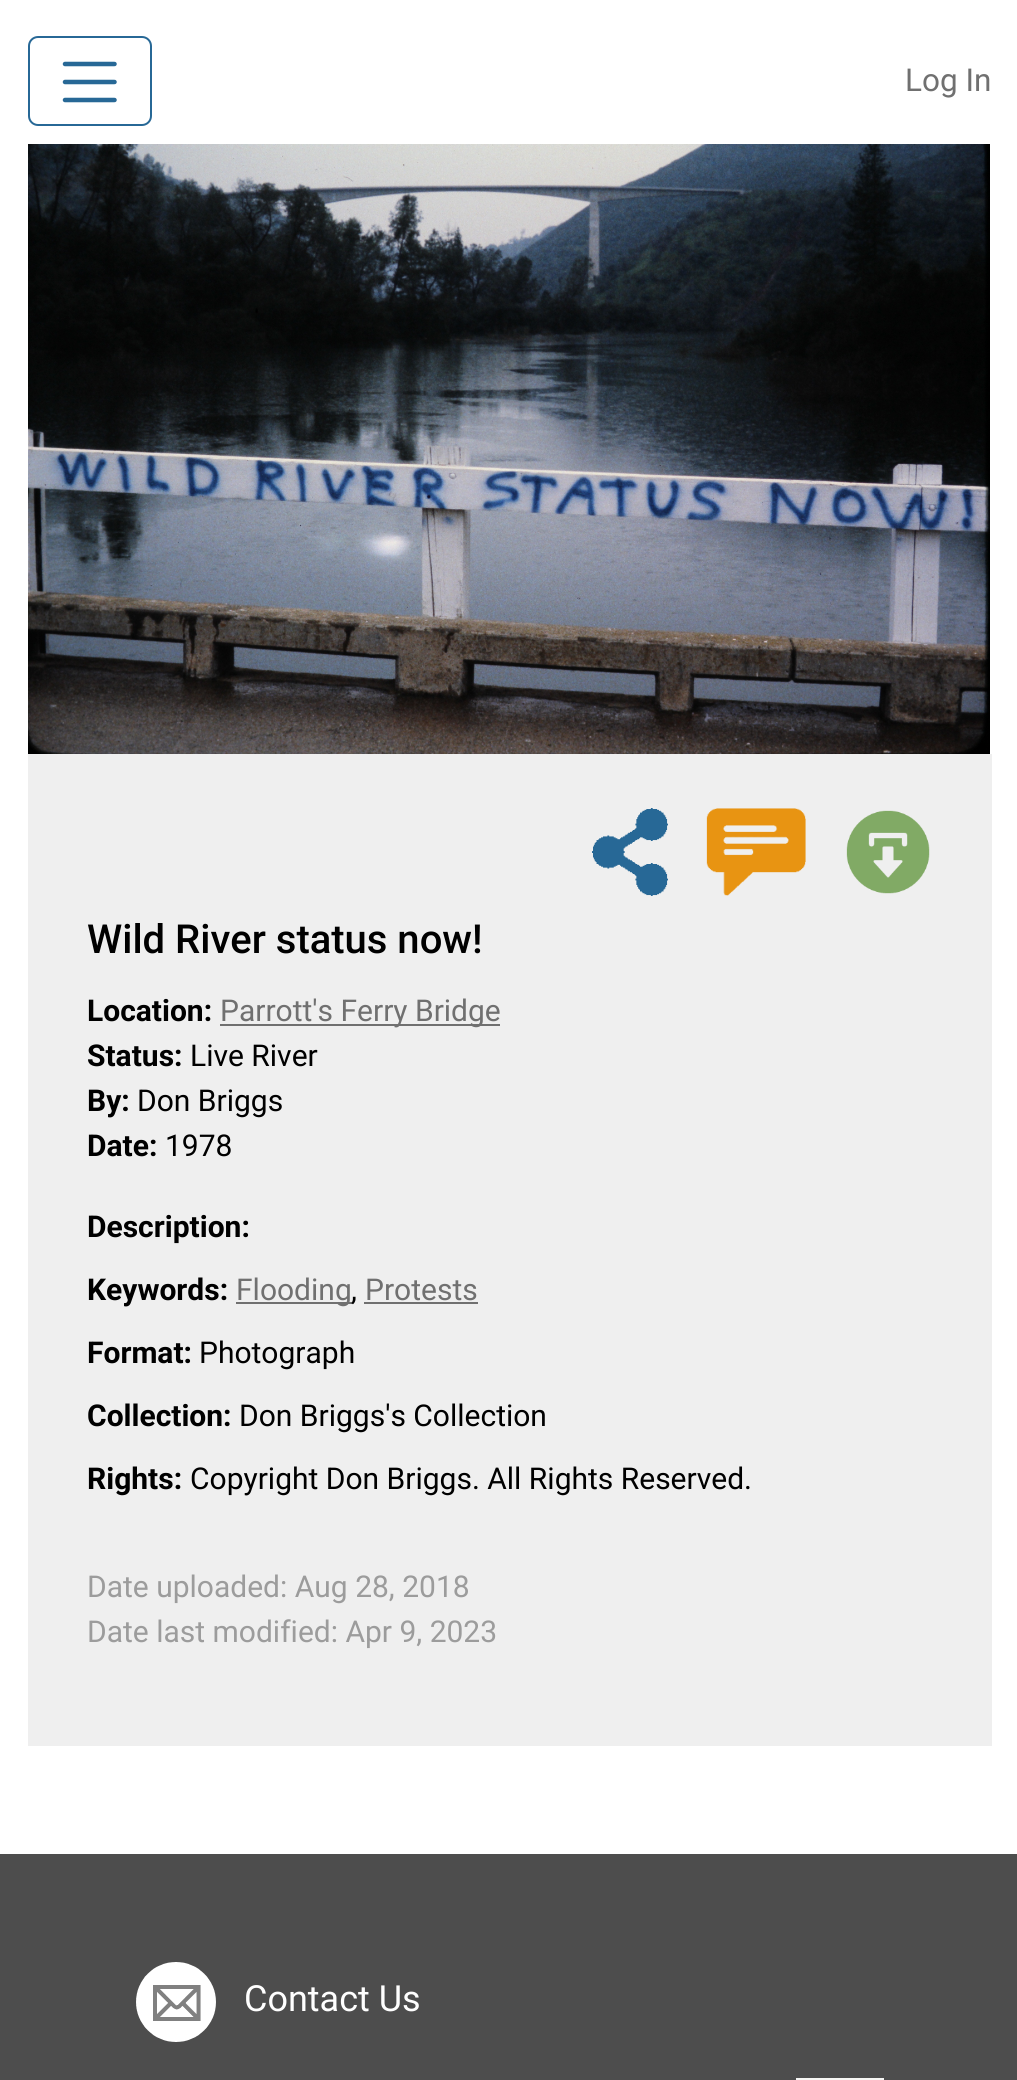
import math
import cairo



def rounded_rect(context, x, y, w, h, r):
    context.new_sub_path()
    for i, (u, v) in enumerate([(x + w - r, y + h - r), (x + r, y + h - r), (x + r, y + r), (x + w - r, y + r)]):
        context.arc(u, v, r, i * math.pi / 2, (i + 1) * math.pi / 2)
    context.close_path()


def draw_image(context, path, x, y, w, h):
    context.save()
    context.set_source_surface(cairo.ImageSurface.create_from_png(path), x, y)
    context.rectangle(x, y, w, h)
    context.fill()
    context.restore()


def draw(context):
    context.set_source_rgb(1, 1, 1)
    context.paint()
    rounded_rect(context, 29, 37, 122, 88, 9)
    context.set_source_rgb(39 / 255, 104 / 255, 150 / 255)
    context.stroke()
    context.new_path()
    context.move_to(65, 64)
    context.line_to(114.5, 64)
    context.move_to(65, 82)
    context.line_to(114.5, 82)
    context.move_to(65, 100)
    context.line_to(114.5, 100)
    context.set_line_width(4.5)
    context.set_line_cap(cairo.LineCap.ROUND)
    context.stroke()
    draw_image(context, "images/1.png", 28, 144, 962, 610)
    context.set_source_rgb(239 / 255, 239 / 255, 239 / 255)
    context.rectangle(28, 754, 964, 992)
    context.fill()
    draw_image(context, "images/2.png", 592, 808, 76, 88)
    draw_image(context, "images/3.png", 706, 808, 100, 88)
    draw_image(context, "images/4.png", 846, 810, 84, 84)
    context.set_source_rgb(112 / 255, 112 / 255, 112 / 255)
    context.rectangle(220, 1024, 280, 2)
    context.fill()
    context.rectangle(236, 1302, 116, 2)
    context.fill()
    context.rectangle(364, 1302, 114, 2)
    context.fill()
    context.set_source_rgb(77 / 255, 77 / 255, 77 / 255)
    context.rectangle(0, 1854, 1017, 226)
    context.fill()
    draw_image(context, "images/5.png", 136, 1962, 80, 80)
    context.set_source_rgb(246 / 255, 246 / 255, 244 / 255)
    context.rectangle(796, 2078, 88, 2)
    context.fill()
    context.select_font_face("Roboto")
    context.set_font_size(31.5)
    context.set_source_rgb(112 / 255, 112 / 255, 112 / 255)
    context.move_to(905, 91)
    context.show_text("Log In")
    context.select_font_face("Roboto Medium")
    context.set_font_size(40)
    context.set_source_rgb(0, 0, 0)
    context.move_to(87, 953)
    context.show_text("Wild River status now!")
    context.select_font_face("Roboto", cairo.FontSlant.NORMAL, cairo.FontWeight.BOLD)
    context.set_font_size(30)
    context.move_to(87, 1021)
    context.show_text("Location:")
    context.select_font_face("Roboto")
    context.set_source_rgb(112 / 255, 112 / 255, 112 / 255)
    context.move_to(220, 1021)
    context.show_text("Parrott's Ferry Bridge")
    context.select_font_face("Roboto", cairo.FontSlant.NORMAL, cairo.FontWeight.BOLD)
    context.set_source_rgb(0, 0, 0)
    context.move_to(87, 1066)
    context.show_text("Status:")
    context.select_font_face("Roboto")
    context.move_to(190, 1066)
    context.show_text("Live River")
    context.select_font_face("Roboto", cairo.FontSlant.NORMAL, cairo.FontWeight.BOLD)
    context.move_to(87, 1111)
    context.show_text("By:")
    context.select_font_face("Roboto")
    context.move_to(137, 1111)
    context.show_text("Don Briggs")
    context.select_font_face("Roboto", cairo.FontSlant.NORMAL, cairo.FontWeight.BOLD)
    context.move_to(87, 1156)
    context.show_text("Date:")
    context.select_font_face("Roboto")
    context.move_to(165, 1156)
    context.show_text("1978")
    context.select_font_face("Roboto", cairo.FontSlant.NORMAL, cairo.FontWeight.BOLD)
    context.move_to(87, 1237)
    context.show_text("Description:")
    context.move_to(87, 1300)
    context.show_text("Keywords:")
    context.select_font_face("Roboto")
    context.set_source_rgb(112 / 255, 112 / 255, 112 / 255)
    context.move_to(236, 1300)
    context.show_text("Flooding")
    context.set_source_rgb(0, 0, 0)
    context.move_to(351, 1300)
    context.show_text(",")
    context.set_source_rgb(112 / 255, 112 / 255, 112 / 255)
    context.move_to(365, 1300)
    context.show_text("Protests")
    context.select_font_face("Roboto", cairo.FontSlant.NORMAL, cairo.FontWeight.BOLD)
    context.set_source_rgb(0, 0, 0)
    context.move_to(87, 1363)
    context.show_text("Format:")
    context.select_font_face("Roboto")
    context.move_to(199, 1363)
    context.show_text("Photograph")
    context.select_font_face("Roboto", cairo.FontSlant.NORMAL, cairo.FontWeight.BOLD)
    context.move_to(87, 1426)
    context.show_text("Collection:")
    context.select_font_face("Roboto")
    context.move_to(239, 1426)
    context.show_text("Don Briggs's Collection")
    context.select_font_face("Roboto", cairo.FontSlant.NORMAL, cairo.FontWeight.BOLD)
    context.move_to(87, 1489)
    context.show_text("Rights:")
    context.select_font_face("Roboto")
    context.move_to(190, 1489)
    context.show_text("Copyright Don Briggs. All Rights Reserved.")
    context.set_source_rgb(156 / 255, 156 / 255, 156 / 255)
    context.move_to(87, 1597)
    context.show_text("Date uploaded: Aug 28, 2018")
    context.move_to(87, 1642)
    context.show_text("Date last modified: Apr 9, 2023")
    context.set_font_size(36)
    context.set_source_rgb(1, 1, 1)
    context.move_to(244, 2011)
    context.show_text("Contact Us")


surface = cairo.ImageSurface(cairo.Format.RGB24, 1017, 2080)
context = cairo.Context(surface)
options = cairo.FontOptions()
options.set_hint_metrics(cairo.HintMetrics.OFF)
options.set_hint_style(cairo.HintStyle.NONE)
context.set_font_options(options)
context.set_miter_limit(4)
draw(context)
surface.write_to_png("out.png")
